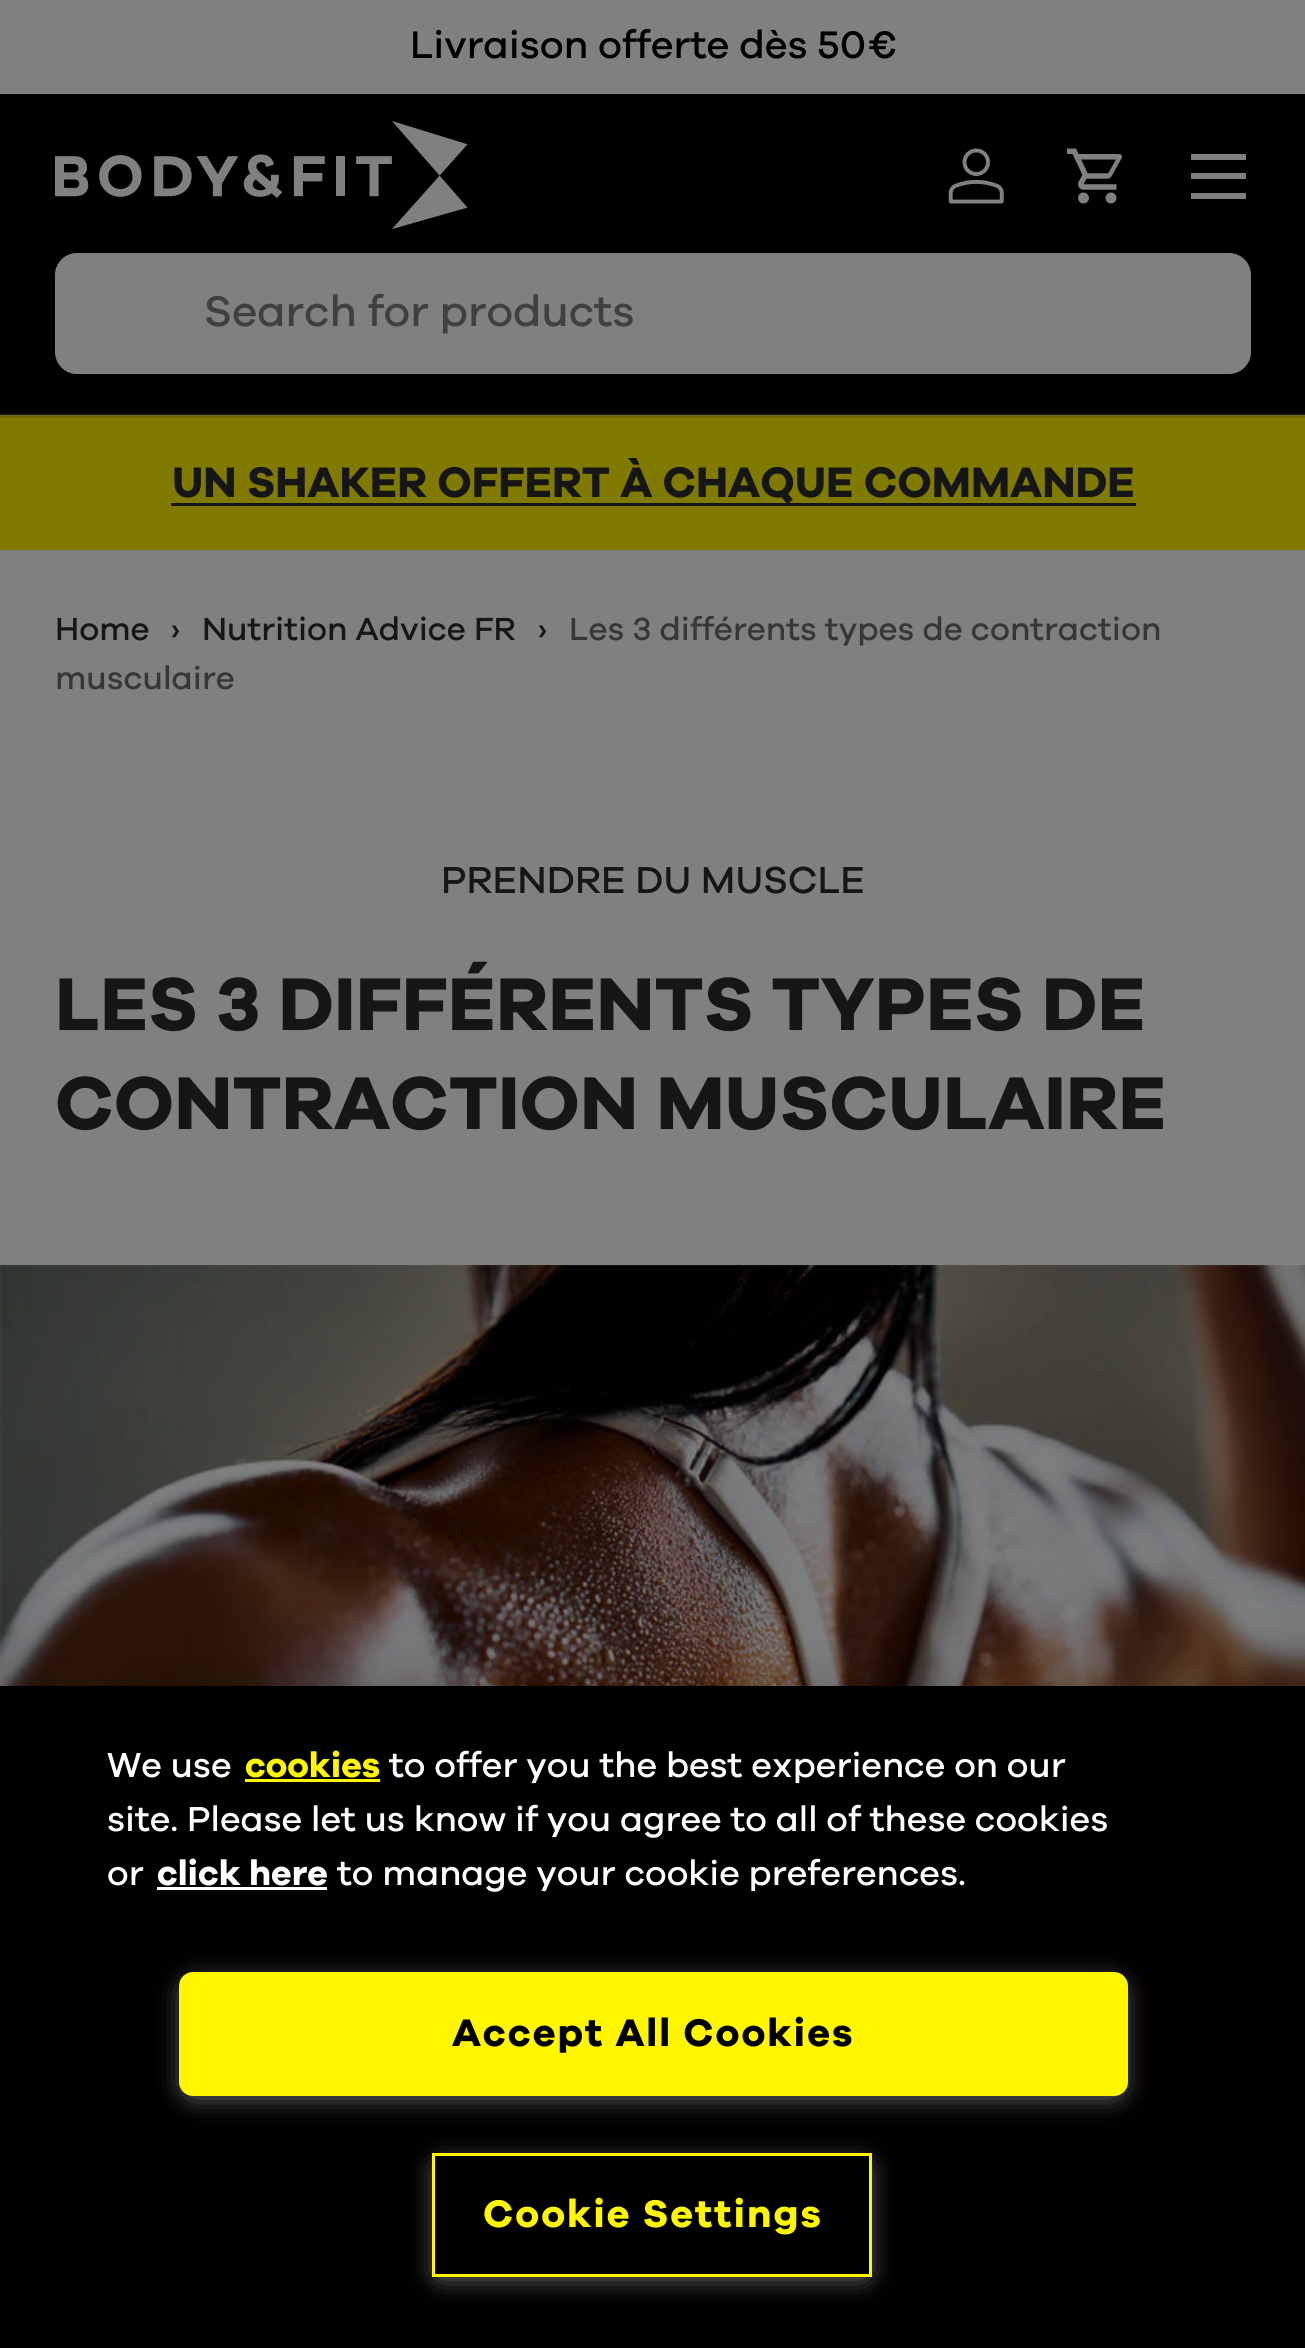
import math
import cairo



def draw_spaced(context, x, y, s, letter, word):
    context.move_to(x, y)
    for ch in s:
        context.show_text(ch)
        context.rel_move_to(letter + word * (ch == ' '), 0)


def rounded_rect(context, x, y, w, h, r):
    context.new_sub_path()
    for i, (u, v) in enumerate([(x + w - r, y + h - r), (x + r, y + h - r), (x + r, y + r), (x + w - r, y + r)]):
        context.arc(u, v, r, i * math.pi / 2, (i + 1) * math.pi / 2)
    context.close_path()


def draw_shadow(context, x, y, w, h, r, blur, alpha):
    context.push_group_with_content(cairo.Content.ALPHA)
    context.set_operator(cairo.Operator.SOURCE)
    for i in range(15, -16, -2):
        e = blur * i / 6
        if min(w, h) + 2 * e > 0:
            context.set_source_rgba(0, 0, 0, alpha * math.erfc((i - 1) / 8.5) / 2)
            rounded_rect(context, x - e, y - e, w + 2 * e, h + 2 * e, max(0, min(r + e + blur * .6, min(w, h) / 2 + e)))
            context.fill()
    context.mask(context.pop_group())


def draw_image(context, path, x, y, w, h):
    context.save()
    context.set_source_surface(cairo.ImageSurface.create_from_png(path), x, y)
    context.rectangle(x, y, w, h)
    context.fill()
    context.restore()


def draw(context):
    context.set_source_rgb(128 / 255, 128 / 255, 128 / 255)
    context.paint()
    context.set_source_rgb(0, 0, 0)
    context.rectangle(0, 94, 1305, 319)
    context.fill()
    context.set_source_rgb(19 / 255, 19 / 255, 19 / 255)
    context.rectangle(0, 413, 1305, 2)
    context.fill()
    draw_image(context, "images/1.png", 55, 121, 413, 108)
    draw_image(context, "images/2.png", 948, 148, 56, 56)
    draw_image(context, "images/3.png", 1067, 148, 55, 56)
    context.set_source_rgb(128 / 255, 128 / 255, 128 / 255)
    context.rectangle(1191, 154, 55, 6)
    context.fill()
    context.rectangle(1191, 193, 55, 6)
    context.fill()
    context.rectangle(1191, 173, 55, 6)
    context.fill()
    rounded_rect(context, 55, 253, 1196, 121, 22)
    context.fill()
    context.set_source_rgb(128 / 255, 123 / 255, 0)
    context.rectangle(0, 418, 1305, 132)
    context.fill()
    context.set_source_rgb(112 / 255, 108 / 255, 3 / 255)
    context.rectangle(0, 416, 1305, 2)
    context.fill()
    context.set_source_rgb(114 / 255, 111 / 255, 22 / 255)
    context.rectangle(0, 415, 1305, 1)
    context.fill()
    context.set_source_rgb(21 / 255, 22 / 255, 21 / 255)
    context.rectangle(171, 503, 965, 3)
    context.fill()
    draw_image(context, "images/4.png", 0, 1265, 1305, 421)
    context.set_source_rgb(0, 0, 0)
    draw_shadow(context, 0, 1686, 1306, 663, 0, 25, 0.2)
    context.set_source_rgb(0, 0, 0)
    context.rectangle(0, 1686, 1305, 662)
    context.fill()
    context.set_source_rgb(1, 246 / 255, 0)
    context.rectangle(245, 1779, 135, 3)
    context.fill()
    context.set_source_rgb(1, 1, 1)
    context.rectangle(157, 1887, 170, 3)
    context.fill()
    context.set_source_rgb(153 / 255, 153 / 255, 153 / 255)
    draw_shadow(context, 187, 1986, 932, 107, 6, 14, 1)
    context.set_source_rgb(1, 246 / 255, 0)
    rounded_rect(context, 180.5, 1973.5, 946, 121, 12.5)
    context.fill_preserve()
    context.set_line_width(3)
    context.stroke()
    context.set_source_rgb(153 / 255, 153 / 255, 153 / 255)
    draw_shadow(context, 440, 2167, 424, 107, 0, 14, 1)
    context.set_source_rgb(0, 0, 0)
    context.rectangle(433.5, 2154.5, 437, 121)
    context.fill_preserve()
    context.set_source_rgb(1, 246 / 255, 0)
    context.stroke()
    context.select_font_face("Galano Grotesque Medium")
    context.set_font_size(39.6)
    context.set_source_rgb(0, 0, 0)
    context.move_to(410, 58)
    context.show_text("Livraison offerte dès 50€")
    context.set_font_size(44)
    context.set_source_rgb(64 / 255, 64 / 255, 64 / 255)
    context.move_to(204, 326)
    context.show_text("Search for products")
    context.select_font_face("Galano Grotesque", cairo.FontSlant.NORMAL, cairo.FontWeight.BOLD)
    context.set_source_rgb(21 / 255, 22 / 255, 21 / 255)
    context.move_to(172, 497)
    context.show_text("UN SHAKER OFFERT À CHAQUE COMMANDE")
    context.select_font_face("Galano Grotesque Medium")
    context.set_font_size(33)
    context.move_to(55, 640)
    context.show_text("Home")
    context.move_to(171, 640)
    context.show_text("›")
    context.move_to(202, 640)
    context.show_text("Nutrition Advice FR")
    context.move_to(538, 640)
    context.show_text("›")
    context.set_source_rgb(55 / 255, 55 / 255, 55 / 255)
    context.move_to(569, 640)
    context.show_text("Les 3 différents types de contraction")
    context.move_to(55, 689)
    context.show_text("musculaire")
    context.set_font_size(38.75)
    context.set_source_rgb(21 / 255, 22 / 255, 21 / 255)
    context.move_to(441, 893)
    context.show_text("PRENDRE DU MUSCLE")
    context.select_font_face("Galano Grotesque", cairo.FontSlant.NORMAL, cairo.FontWeight.BOLD)
    context.set_font_size(77)
    context.move_to(55, 1030)
    context.show_text("LES 3 DIFFÉRENTS TYPES DE")
    context.move_to(55, 1129)
    context.show_text("CONTRACTION MUSCULAIRE")
    context.select_font_face("Galano Grotesque Medium")
    context.set_font_size(35.75)
    context.set_source_rgb(1, 1, 1)
    context.move_to(107, 1777)
    context.show_text("We use")
    context.select_font_face("Galano Grotesque", cairo.FontSlant.NORMAL, cairo.FontWeight.BOLD)
    context.set_source_rgb(1, 246 / 255, 0)
    context.move_to(245, 1777)
    context.show_text("cookies")
    context.select_font_face("Galano Grotesque Medium")
    context.set_source_rgb(1, 1, 1)
    context.move_to(389, 1777)
    context.show_text("to offer you the best experience on our")
    context.move_to(107, 1831)
    context.show_text("site. Please let us know if you agree to all of these cookies")
    context.move_to(107, 1885)
    context.show_text("or")
    context.select_font_face("Galano Grotesque", cairo.FontSlant.NORMAL, cairo.FontWeight.BOLD)
    context.move_to(157, 1885)
    context.show_text("click here")
    context.select_font_face("Galano Grotesque Medium")
    context.move_to(337, 1885)
    context.show_text("to manage your cookie preferences.")
    context.select_font_face("Galano Grotesque", cairo.FontSlant.NORMAL, cairo.FontWeight.BOLD)
    context.set_font_size(39.6)
    context.set_source_rgb(0, 0, 0)
    draw_spaced(context, 452, 2046, "Accept All Cookies", 2, 0)
    context.set_source_rgb(1, 246 / 255, 0)
    draw_spaced(context, 483, 2227, "Cookie Settings", 2, 0)


surface = cairo.ImageSurface(cairo.Format.RGB24, 1305, 2348)
context = cairo.Context(surface)
options = cairo.FontOptions()
options.set_hint_metrics(cairo.HintMetrics.OFF)
options.set_hint_style(cairo.HintStyle.NONE)
context.set_font_options(options)
context.set_miter_limit(4)
draw(context)
surface.write_to_png("out.png")
